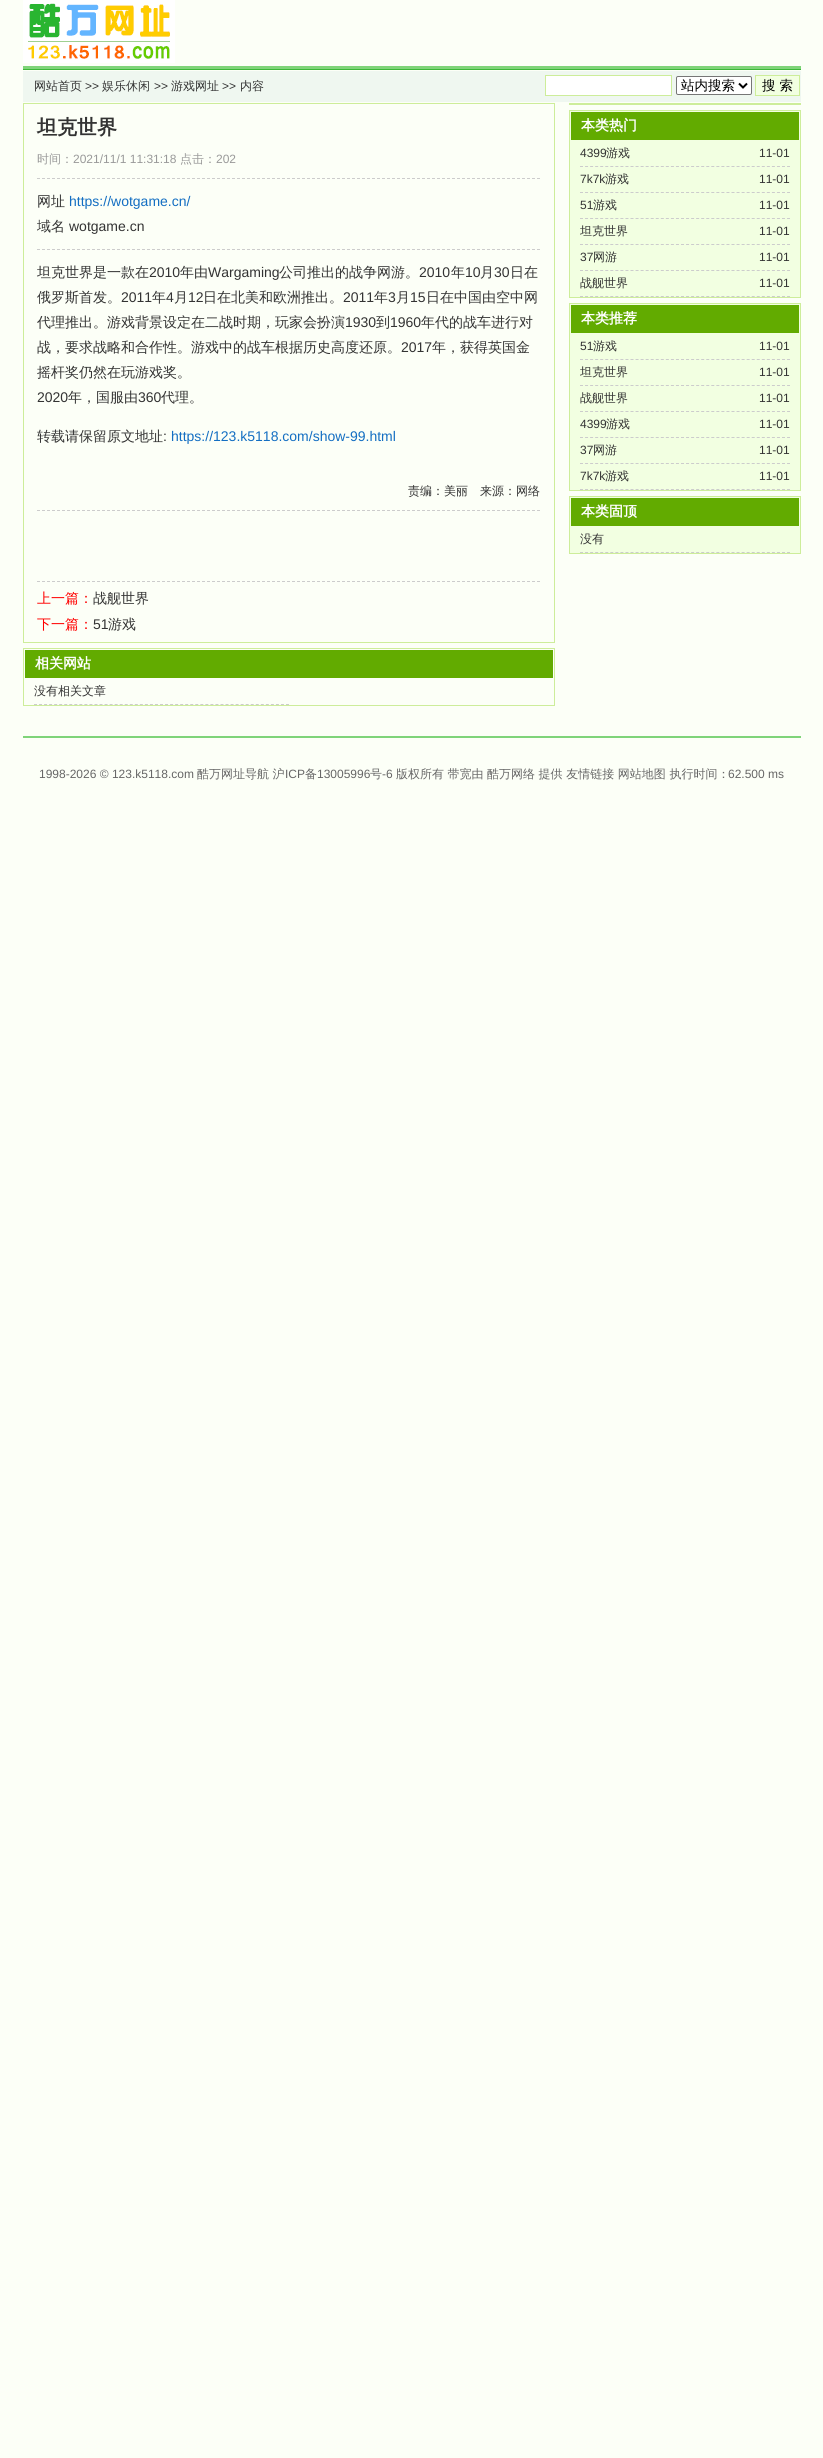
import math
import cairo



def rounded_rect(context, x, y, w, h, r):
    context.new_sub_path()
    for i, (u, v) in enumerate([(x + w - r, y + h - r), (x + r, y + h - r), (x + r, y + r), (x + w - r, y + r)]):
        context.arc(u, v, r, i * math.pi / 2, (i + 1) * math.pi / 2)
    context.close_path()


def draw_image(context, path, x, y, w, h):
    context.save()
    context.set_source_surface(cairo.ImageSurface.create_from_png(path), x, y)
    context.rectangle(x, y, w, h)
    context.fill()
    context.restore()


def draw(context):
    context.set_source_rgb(252 / 255, 1, 247 / 255)
    context.paint()
    draw_image(context, "images/1.png", 23, 0, 152, 63)
    context.set_source_rgb(127 / 255, 212 / 255, 121 / 255)
    context.rectangle(23, 66, 778, 3)
    context.fill()
    context.set_source_rgb(60 / 255, 183 / 255, 56 / 255)
    context.rectangle(23, 69, 778, 1)
    context.fill()
    context.set_source_rgb(239 / 255, 247 / 255, 240 / 255)
    context.rectangle(23, 71, 778, 31)
    context.fill()
    context.set_source_rgb(1, 1, 1)
    context.rectangle(545.5, 75.5, 126, 20)
    context.fill_preserve()
    context.set_source_rgb(205 / 255, 237 / 255, 154 / 255)
    context.set_line_width(1)
    context.stroke()
    context.set_source_rgb(1, 1, 1)
    rounded_rect(context, 676.5, 76.5, 75, 18, 1.5)
    context.fill_preserve()
    context.set_source_rgb(118 / 255, 118 / 255, 118 / 255)
    context.stroke()
    context.new_path()
    context.move_to(739, 83.5)
    context.line_to(743, 87.5)
    context.line_to(747, 83.5)
    context.set_source_rgb(0, 0, 0)
    context.set_line_width(2)
    context.stroke()
    context.set_source_rgb(242 / 255, 1, 225 / 255)
    context.rectangle(755.5, 75.5, 44, 20)
    context.fill_preserve()
    context.set_source_rgb(205 / 255, 237 / 255, 154 / 255)
    context.set_line_width(1)
    context.stroke()
    context.rectangle(23.5, 103.5, 531, 539)
    context.stroke()
    context.new_path()
    context.move_to(37, 178.5)
    context.line_to(540, 178.5)
    context.set_source_rgb(204 / 255, 204 / 255, 204 / 255)
    context.set_dash([3, 2])
    context.stroke()
    context.new_path()
    context.move_to(37, 249.5)
    context.line_to(540, 249.5)
    context.stroke()
    context.new_path()
    context.move_to(37, 510.5)
    context.line_to(540, 510.5)
    context.stroke()
    context.new_path()
    context.move_to(37, 581.5)
    context.line_to(540, 581.5)
    context.stroke()
    context.rectangle(23.5, 648.5, 531, 57)
    context.set_source_rgb(205 / 255, 237 / 255, 154 / 255)
    context.set_dash([])
    context.stroke()
    context.set_source_rgb(98 / 255, 171 / 255, 0)
    context.rectangle(25, 650, 528, 28)
    context.fill()
    context.new_path()
    context.move_to(34, 704.5)
    context.line_to(289, 704.5)
    context.set_source_rgb(204 / 255, 204 / 255, 204 / 255)
    context.set_dash([3, 2.04])
    context.stroke()
    context.set_source_rgb(205 / 255, 237 / 255, 154 / 255)
    context.rectangle(569, 103, 232, 2)
    context.fill()
    context.set_source_rgb(242 / 255, 1, 225 / 255)
    context.rectangle(569.5, 110.5, 231, 187)
    context.fill_preserve()
    context.set_source_rgb(205 / 255, 237 / 255, 154 / 255)
    context.set_dash([])
    context.stroke()
    context.set_source_rgb(98 / 255, 171 / 255, 0)
    context.rectangle(571, 112, 228, 28)
    context.fill()
    context.new_path()
    context.move_to(580, 166.5)
    context.line_to(790, 166.5)
    context.set_source_rgb(204 / 255, 204 / 255, 204 / 255)
    context.set_dash([3, 2.05])
    context.stroke()
    context.new_path()
    context.move_to(580, 192.5)
    context.line_to(790, 192.5)
    context.stroke()
    context.new_path()
    context.move_to(580, 218.5)
    context.line_to(790, 218.5)
    context.stroke()
    context.new_path()
    context.move_to(580, 244.5)
    context.line_to(790, 244.5)
    context.stroke()
    context.new_path()
    context.move_to(580, 270.5)
    context.line_to(790, 270.5)
    context.stroke()
    context.new_path()
    context.move_to(580, 296.5)
    context.line_to(790, 296.5)
    context.stroke()
    context.set_source_rgb(242 / 255, 1, 225 / 255)
    context.rectangle(569.5, 303.5, 231, 187)
    context.fill_preserve()
    context.set_source_rgb(205 / 255, 237 / 255, 154 / 255)
    context.set_dash([])
    context.stroke()
    context.set_source_rgb(98 / 255, 171 / 255, 0)
    context.rectangle(571, 305, 228, 28)
    context.fill()
    context.new_path()
    context.move_to(580, 359.5)
    context.line_to(790, 359.5)
    context.set_source_rgb(204 / 255, 204 / 255, 204 / 255)
    context.set_dash([3, 2.05])
    context.stroke()
    context.new_path()
    context.move_to(580, 385.5)
    context.line_to(790, 385.5)
    context.stroke()
    context.new_path()
    context.move_to(580, 411.5)
    context.line_to(790, 411.5)
    context.stroke()
    context.new_path()
    context.move_to(580, 437.5)
    context.line_to(790, 437.5)
    context.stroke()
    context.new_path()
    context.move_to(580, 463.5)
    context.line_to(790, 463.5)
    context.stroke()
    context.new_path()
    context.move_to(580, 489.5)
    context.line_to(790, 489.5)
    context.stroke()
    context.set_source_rgb(242 / 255, 1, 225 / 255)
    context.rectangle(569.5, 496.5, 231, 57)
    context.fill_preserve()
    context.set_source_rgb(205 / 255, 237 / 255, 154 / 255)
    context.set_dash([])
    context.stroke()
    context.set_source_rgb(98 / 255, 171 / 255, 0)
    context.rectangle(571, 498, 228, 28)
    context.fill()
    context.new_path()
    context.move_to(580, 552.5)
    context.line_to(790, 552.5)
    context.set_source_rgb(204 / 255, 204 / 255, 204 / 255)
    context.set_dash([3, 2.05])
    context.stroke()
    context.set_source_rgb(127 / 255, 212 / 255, 121 / 255)
    context.rectangle(23, 736, 778, 2)
    context.fill()
    context.select_font_face("WenQuanYi Zen Hei Medium")
    context.set_font_size(12)
    context.set_source_rgb(51 / 255, 51 / 255, 51 / 255)
    context.move_to(34, 90)
    context.show_text("网站首页")
    context.select_font_face("Liberation Sans")
    context.move_to(85, 90)
    context.show_text(">>")
    context.select_font_face("WenQuanYi Zen Hei Medium")
    context.move_to(102, 90)
    context.show_text("娱乐休闲")
    context.select_font_face("Liberation Sans")
    context.move_to(154, 90)
    context.show_text(">>")
    context.select_font_face("WenQuanYi Zen Hei Medium")
    context.move_to(171, 90)
    context.show_text("游戏网址")
    context.select_font_face("Liberation Sans")
    context.move_to(222, 90)
    context.show_text(">>")
    context.select_font_face("WenQuanYi Zen Hei Medium")
    context.move_to(240, 90)
    context.show_text("内容")
    context.set_font_size(13.5)
    context.set_source_rgb(0, 0, 0)
    context.move_to(681, 90)
    context.show_text("站内搜索")
    context.move_to(762, 90)
    context.show_text("搜 索")
    context.select_font_face("WenQuanYi Zen Hei", cairo.FontSlant.NORMAL, cairo.FontWeight.BOLD)
    context.set_font_size(20)
    context.set_source_rgb(51 / 255, 51 / 255, 51 / 255)
    context.move_to(37, 134)
    context.show_text("坦克世界")
    context.select_font_face("WenQuanYi Zen Hei Medium")
    context.set_font_size(12)
    context.set_source_rgb(153 / 255, 153 / 255, 153 / 255)
    context.move_to(37, 163)
    context.show_text("时间：")
    context.select_font_face("Liberation Sans")
    context.move_to(73, 163)
    context.show_text("2021/11/1 11:31:18")
    context.select_font_face("WenQuanYi Zen Hei Medium")
    context.move_to(180, 163)
    context.show_text("点击：")
    context.select_font_face("Liberation Sans")
    context.move_to(216, 163)
    context.show_text("202")
    context.select_font_face("WenQuanYi Zen Hei Medium")
    context.set_font_size(14)
    context.set_source_rgb(51 / 255, 51 / 255, 51 / 255)
    context.move_to(37, 206)
    context.show_text("网址")
    context.select_font_face("Liberation Sans")
    context.set_source_rgb(19 / 255, 110 / 255, 194 / 255)
    context.move_to(69, 206)
    context.show_text("https://wotgame.cn/")
    context.select_font_face("WenQuanYi Zen Hei Medium")
    context.set_source_rgb(51 / 255, 51 / 255, 51 / 255)
    context.move_to(37, 231)
    context.show_text("域名")
    context.select_font_face("Liberation Sans")
    context.move_to(69, 231)
    context.show_text("wotgame.cn")
    context.select_font_face("WenQuanYi Zen Hei Medium")
    context.move_to(37, 277)
    context.show_text("坦克世界是一款在")
    context.select_font_face("Liberation Sans")
    context.move_to(149, 277)
    context.show_text("2010")
    context.select_font_face("WenQuanYi Zen Hei Medium")
    context.move_to(180, 277)
    context.show_text("年由")
    context.select_font_face("Liberation Sans")
    context.move_to(208, 277)
    context.show_text("Wargaming")
    context.select_font_face("WenQuanYi Zen Hei Medium")
    context.move_to(279, 277)
    context.show_text("公司推出的战争网游。")
    context.select_font_face("Liberation Sans")
    context.move_to(419, 277)
    context.show_text("2010")
    context.select_font_face("WenQuanYi Zen Hei Medium")
    context.move_to(451, 277)
    context.show_text("年")
    context.select_font_face("Liberation Sans")
    context.move_to(465, 277)
    context.show_text("10")
    context.select_font_face("WenQuanYi Zen Hei Medium")
    context.move_to(480, 277)
    context.show_text("月")
    context.select_font_face("Liberation Sans")
    context.move_to(494, 277)
    context.show_text("30")
    context.select_font_face("WenQuanYi Zen Hei Medium")
    context.move_to(510, 277)
    context.show_text("日在")
    context.move_to(37, 302)
    context.show_text("俄罗斯首发。")
    context.select_font_face("Liberation Sans")
    context.move_to(121, 302)
    context.show_text("2011")
    context.select_font_face("WenQuanYi Zen Hei Medium")
    context.move_to(152, 302)
    context.show_text("年")
    context.select_font_face("Liberation Sans")
    context.move_to(166, 302)
    context.show_text("4")
    context.select_font_face("WenQuanYi Zen Hei Medium")
    context.move_to(174, 302)
    context.show_text("月")
    context.select_font_face("Liberation Sans")
    context.move_to(188, 302)
    context.show_text("12")
    context.select_font_face("WenQuanYi Zen Hei Medium")
    context.move_to(203, 302)
    context.show_text("日在北美和欧洲推出。")
    context.select_font_face("Liberation Sans")
    context.move_to(343, 302)
    context.show_text("2011")
    context.select_font_face("WenQuanYi Zen Hei Medium")
    context.move_to(374, 302)
    context.show_text("年")
    context.select_font_face("Liberation Sans")
    context.move_to(388, 302)
    context.show_text("3")
    context.select_font_face("WenQuanYi Zen Hei Medium")
    context.move_to(396, 302)
    context.show_text("月")
    context.select_font_face("Liberation Sans")
    context.move_to(410, 302)
    context.show_text("15")
    context.select_font_face("WenQuanYi Zen Hei Medium")
    context.move_to(426, 302)
    context.show_text("日在中国由空中网")
    context.move_to(37, 327)
    context.show_text("代理推出。游戏背景设定在二战时期，玩家会扮演")
    context.select_font_face("Liberation Sans")
    context.move_to(345, 327)
    context.show_text("1930")
    context.select_font_face("WenQuanYi Zen Hei Medium")
    context.move_to(376, 327)
    context.show_text("到")
    context.select_font_face("Liberation Sans")
    context.move_to(390, 327)
    context.show_text("1960")
    context.select_font_face("WenQuanYi Zen Hei Medium")
    context.move_to(421, 327)
    context.show_text("年代的战车进行对")
    context.move_to(37, 352)
    context.show_text("战，要求战略和合作性。游戏中的战车根据历史高度还原。")
    context.select_font_face("Liberation Sans")
    context.move_to(401, 352)
    context.show_text("2017")
    context.select_font_face("WenQuanYi Zen Hei Medium")
    context.move_to(432, 352)
    context.show_text("年，获得英国金")
    context.move_to(37, 377)
    context.show_text("摇杆奖仍然在玩游戏奖。")
    context.select_font_face("Liberation Sans")
    context.move_to(37, 402)
    context.show_text("2020")
    context.select_font_face("WenQuanYi Zen Hei Medium")
    context.move_to(68, 402)
    context.show_text("年，国服由")
    context.select_font_face("Liberation Sans")
    context.move_to(138, 402)
    context.show_text("360")
    context.select_font_face("WenQuanYi Zen Hei Medium")
    context.move_to(161, 402)
    context.show_text("代理。")
    context.move_to(37, 441)
    context.show_text("转载请保留原文地址")
    context.select_font_face("Liberation Sans")
    context.move_to(163, 441)
    context.show_text(":")
    context.set_source_rgb(19 / 255, 110 / 255, 194 / 255)
    context.move_to(171, 441)
    context.show_text("https://123.k5118.com/show-99.html")
    context.select_font_face("WenQuanYi Zen Hei Medium")
    context.set_font_size(12)
    context.set_source_rgb(51 / 255, 51 / 255, 51 / 255)
    context.move_to(408, 495)
    context.show_text("责编：美丽　来源：网络")
    context.set_font_size(14)
    context.set_source_rgb(1, 0, 0)
    context.move_to(37, 603)
    context.show_text("上一篇：")
    context.set_source_rgb(51 / 255, 51 / 255, 51 / 255)
    context.move_to(93, 603)
    context.show_text("战舰世界")
    context.set_source_rgb(1, 0, 0)
    context.move_to(37, 629)
    context.show_text("下一篇：")
    context.select_font_face("Liberation Sans")
    context.set_source_rgb(51 / 255, 51 / 255, 51 / 255)
    context.move_to(93, 629)
    context.show_text("51")
    context.select_font_face("WenQuanYi Zen Hei Medium")
    context.move_to(108, 629)
    context.show_text("游戏")
    context.select_font_face("WenQuanYi Zen Hei", cairo.FontSlant.NORMAL, cairo.FontWeight.BOLD)
    context.set_source_rgb(1, 1, 1)
    context.move_to(35, 668)
    context.show_text("相关网站")
    context.select_font_face("WenQuanYi Zen Hei Medium")
    context.set_font_size(12)
    context.set_source_rgb(51 / 255, 51 / 255, 51 / 255)
    context.move_to(34, 695)
    context.show_text("没有相关文章")
    context.select_font_face("WenQuanYi Zen Hei", cairo.FontSlant.NORMAL, cairo.FontWeight.BOLD)
    context.set_font_size(14)
    context.set_source_rgb(1, 1, 1)
    context.move_to(581, 130)
    context.show_text("本类热门")
    context.select_font_face("Liberation Sans")
    context.set_font_size(12)
    context.set_source_rgb(51 / 255, 51 / 255, 51 / 255)
    context.move_to(580, 157)
    context.show_text("4399")
    context.select_font_face("WenQuanYi Zen Hei Medium")
    context.move_to(606, 157)
    context.show_text("游戏")
    context.select_font_face("Liberation Sans")
    context.move_to(759, 157)
    context.show_text("11-01")
    context.move_to(580, 183)
    context.show_text("7k7k")
    context.select_font_face("WenQuanYi Zen Hei Medium")
    context.move_to(605, 183)
    context.show_text("游戏")
    context.select_font_face("Liberation Sans")
    context.move_to(759, 183)
    context.show_text("11-01")
    context.move_to(580, 209)
    context.show_text("51")
    context.select_font_face("WenQuanYi Zen Hei Medium")
    context.move_to(593, 209)
    context.show_text("游戏")
    context.select_font_face("Liberation Sans")
    context.move_to(759, 209)
    context.show_text("11-01")
    context.save()
    context.rectangle(580, 219, 210, 25)
    context.clip()
    context.select_font_face("WenQuanYi Zen Hei Medium")
    context.move_to(580, 235)
    context.show_text("坦克世界")
    context.restore()
    context.move_to(759, 235)
    context.show_text("11-01")
    context.move_to(580, 261)
    context.show_text("37")
    context.select_font_face("WenQuanYi Zen Hei Medium")
    context.move_to(593, 261)
    context.show_text("网游")
    context.select_font_face("Liberation Sans")
    context.move_to(759, 261)
    context.show_text("11-01")
    context.select_font_face("WenQuanYi Zen Hei Medium")
    context.move_to(580, 287)
    context.show_text("战舰世界")
    context.select_font_face("Liberation Sans")
    context.move_to(759, 287)
    context.show_text("11-01")
    context.select_font_face("WenQuanYi Zen Hei", cairo.FontSlant.NORMAL, cairo.FontWeight.BOLD)
    context.set_font_size(14)
    context.set_source_rgb(1, 1, 1)
    context.move_to(581, 323)
    context.show_text("本类推荐")
    context.select_font_face("Liberation Sans")
    context.set_font_size(12)
    context.set_source_rgb(51 / 255, 51 / 255, 51 / 255)
    context.move_to(580, 350)
    context.show_text("51")
    context.select_font_face("WenQuanYi Zen Hei Medium")
    context.move_to(593, 350)
    context.show_text("游戏")
    context.select_font_face("Liberation Sans")
    context.move_to(759, 350)
    context.show_text("11-01")
    context.save()
    context.rectangle(580, 360, 210, 25)
    context.clip()
    context.select_font_face("WenQuanYi Zen Hei Medium")
    context.move_to(580, 376)
    context.show_text("坦克世界")
    context.restore()
    context.move_to(759, 376)
    context.show_text("11-01")
    context.select_font_face("WenQuanYi Zen Hei Medium")
    context.move_to(580, 402)
    context.show_text("战舰世界")
    context.select_font_face("Liberation Sans")
    context.move_to(759, 402)
    context.show_text("11-01")
    context.move_to(580, 428)
    context.show_text("4399")
    context.select_font_face("WenQuanYi Zen Hei Medium")
    context.move_to(606, 428)
    context.show_text("游戏")
    context.select_font_face("Liberation Sans")
    context.move_to(759, 428)
    context.show_text("11-01")
    context.move_to(580, 454)
    context.show_text("37")
    context.select_font_face("WenQuanYi Zen Hei Medium")
    context.move_to(593, 454)
    context.show_text("网游")
    context.select_font_face("Liberation Sans")
    context.move_to(759, 454)
    context.show_text("11-01")
    context.move_to(580, 480)
    context.show_text("7k7k")
    context.select_font_face("WenQuanYi Zen Hei Medium")
    context.move_to(605, 480)
    context.show_text("游戏")
    context.select_font_face("Liberation Sans")
    context.move_to(759, 480)
    context.show_text("11-01")
    context.select_font_face("WenQuanYi Zen Hei", cairo.FontSlant.NORMAL, cairo.FontWeight.BOLD)
    context.set_font_size(14)
    context.set_source_rgb(1, 1, 1)
    context.move_to(581, 516)
    context.show_text("本类固顶")
    context.select_font_face("WenQuanYi Zen Hei Medium")
    context.set_font_size(12)
    context.set_source_rgb(51 / 255, 51 / 255, 51 / 255)
    context.move_to(580, 543)
    context.show_text("没有")
    context.select_font_face("Liberation Sans")
    context.set_source_rgb(102 / 255, 102 / 255, 102 / 255)
    context.move_to(39, 778)
    context.show_text("1998-2026 © 123.k5118.com")
    context.select_font_face("WenQuanYi Zen Hei Medium")
    context.move_to(197, 778)
    context.show_text("酷万网址导航 沪")
    context.select_font_face("Liberation Sans")
    context.move_to(285, 778)
    context.show_text("ICP")
    context.select_font_face("WenQuanYi Zen Hei Medium")
    context.move_to(305, 778)
    context.show_text("备")
    context.select_font_face("Liberation Sans")
    context.move_to(317, 778)
    context.show_text("13005996")
    context.select_font_face("WenQuanYi Zen Hei Medium")
    context.move_to(370, 778)
    context.show_text("号")
    context.select_font_face("Liberation Sans")
    context.move_to(382, 778)
    context.show_text("-6")
    context.select_font_face("WenQuanYi Zen Hei Medium")
    context.move_to(396, 778)
    context.show_text("版权所有 带宽由")
    context.move_to(487, 778)
    context.show_text("酷万网络 提供 友情链接 网站地图 执行时间：")
    context.select_font_face("Liberation Sans")
    context.move_to(728, 778)
    context.show_text("62.500 ms")


surface = cairo.ImageSurface(cairo.Format.RGB24, 823, 2458)
context = cairo.Context(surface)
options = cairo.FontOptions()
options.set_hint_metrics(cairo.HintMetrics.OFF)
options.set_hint_style(cairo.HintStyle.NONE)
context.set_font_options(options)
context.set_miter_limit(4)
draw(context)
surface.write_to_png("out.png")
